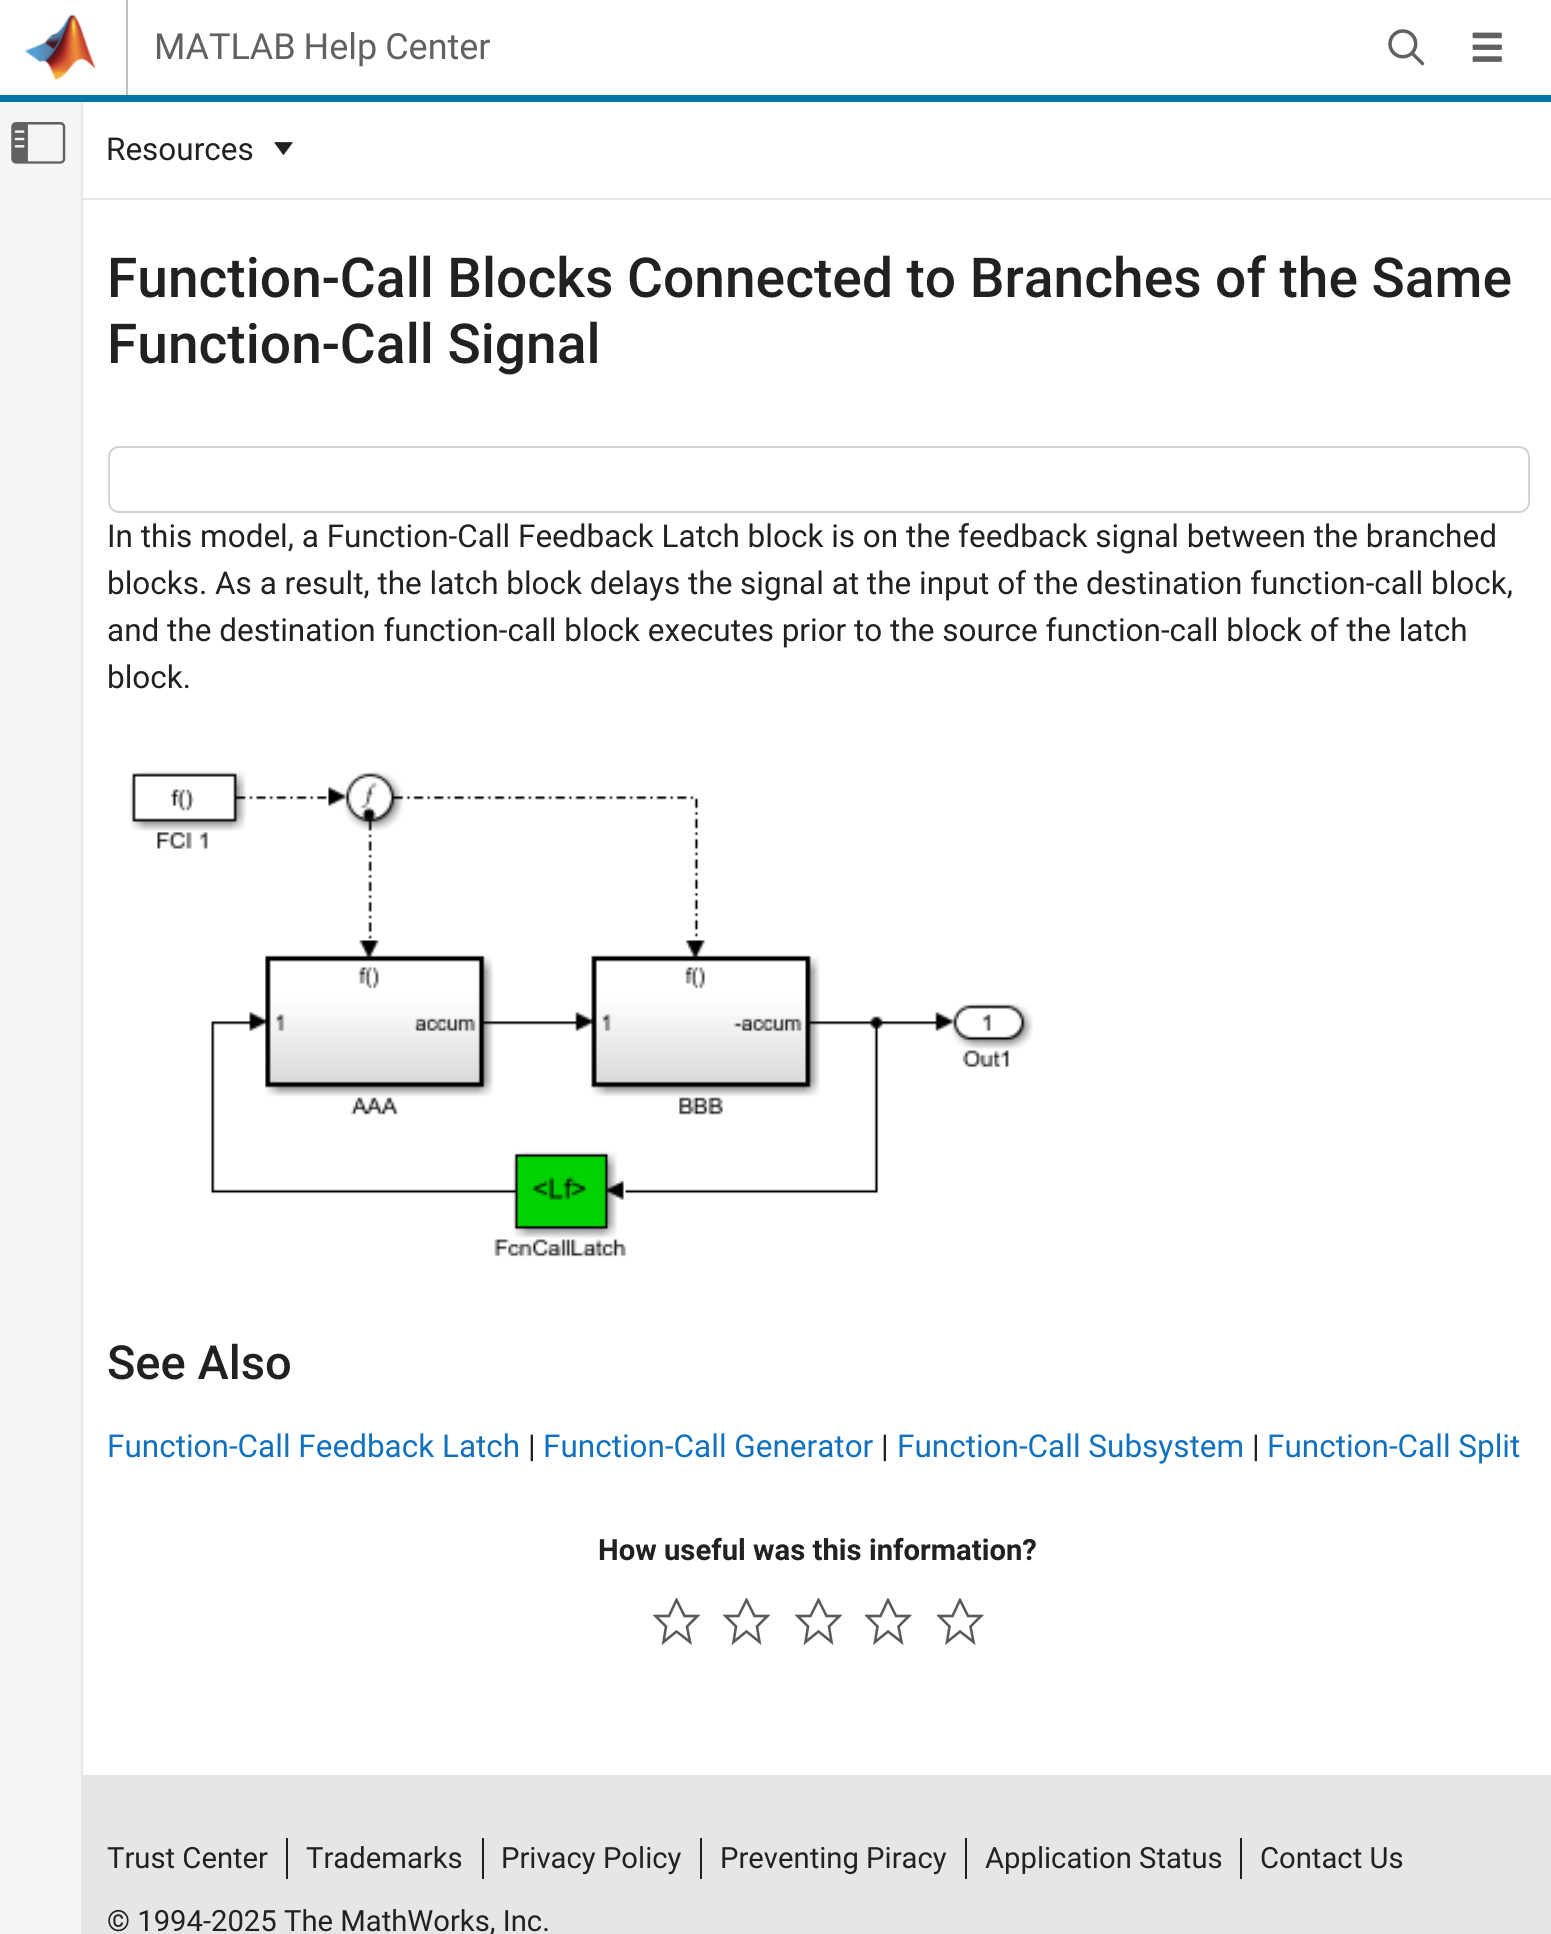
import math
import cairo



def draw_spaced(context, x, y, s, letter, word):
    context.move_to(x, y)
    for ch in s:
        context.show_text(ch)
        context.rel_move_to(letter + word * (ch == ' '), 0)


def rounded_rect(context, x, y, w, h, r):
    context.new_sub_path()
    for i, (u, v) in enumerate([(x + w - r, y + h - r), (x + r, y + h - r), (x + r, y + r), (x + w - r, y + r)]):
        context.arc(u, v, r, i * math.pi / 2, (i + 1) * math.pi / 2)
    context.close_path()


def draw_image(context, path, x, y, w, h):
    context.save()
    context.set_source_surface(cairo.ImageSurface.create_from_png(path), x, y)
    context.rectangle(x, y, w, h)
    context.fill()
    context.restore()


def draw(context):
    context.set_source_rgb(245 / 255, 245 / 255, 245 / 255)
    context.paint()
    context.set_source_rgb(1, 1, 1)
    context.rectangle(0, 0, 1551, 95)
    context.fill()
    context.set_source_rgb(230 / 255, 230 / 255, 230 / 255)
    context.rectangle(81, 101, 2, 1833)
    context.fill()
    context.set_source_rgb(0, 118 / 255, 168 / 255)
    context.rectangle(0, 95, 1551, 7)
    context.fill()
    context.set_source_rgb(191 / 255, 191 / 255, 191 / 255)
    context.rectangle(126, 0, 2, 95)
    context.fill()
    draw_image(context, "images/1.png", 24, 14, 72, 66)
    draw_image(context, "images/2.png", 1388, 29, 37, 37)
    draw_image(context, "images/3.png", 1472, 32, 30, 30)
    draw_image(context, "images/4.png", 11, 122, 55, 42)
    context.set_source_rgb(230 / 255, 230 / 255, 230 / 255)
    context.rectangle(83, 1775, 1468, 159)
    context.fill()
    context.set_source_rgb(1, 1, 1)
    context.rectangle(83, 102, 1468, 96)
    context.fill()
    context.set_source_rgb(230 / 255, 230 / 255, 230 / 255)
    context.rectangle(83, 198, 1468, 2)
    context.fill()
    draw_image(context, "images/5.png", 274, 142, 19, 13)
    context.set_source_rgb(1, 1, 1)
    context.rectangle(83, 200, 1468, 1575)
    context.fill()
    rounded_rect(context, 109, 447, 1420, 65, 10)
    context.set_source_rgb(210 / 255, 210 / 255, 210 / 255)
    context.stroke()
    draw_image(context, "images/6.png", 130, 771, 903, 486)
    context.save()
    context.rectangle(653, 1598, 47, 47)
    context.clip()
    context.new_path()
    context.move_to(669, 1616)
    context.line_to(655.5, 1616)
    context.line_to(666, 1626.5)
    context.line_to(663.5, 1642)
    context.line_to(676.5, 1631.5)
    context.line_to(690, 1642)
    context.line_to(687, 1626.5)
    context.line_to(697.5, 1616)
    context.line_to(684.5, 1616)
    context.line_to(676.5, 1600)
    context.close_path()
    context.set_source_rgb(90 / 255, 90 / 255, 90 / 255)
    context.set_line_width(2.6)
    context.stroke()
    context.restore()
    context.save()
    context.rectangle(723, 1598, 47, 47)
    context.clip()
    context.new_path()
    context.move_to(738.5, 1616)
    context.line_to(725.5, 1616)
    context.line_to(736, 1626.5)
    context.line_to(733.5, 1642)
    context.line_to(746.5, 1631.5)
    context.line_to(759.5, 1642)
    context.line_to(757, 1626.5)
    context.line_to(767.5, 1616)
    context.line_to(754.5, 1616)
    context.line_to(746.5, 1600)
    context.close_path()
    context.set_source_rgb(90 / 255, 90 / 255, 90 / 255)
    context.set_line_width(2.6)
    context.stroke()
    context.restore()
    context.save()
    context.rectangle(795, 1598, 47, 47)
    context.clip()
    context.new_path()
    context.move_to(810.5, 1616)
    context.line_to(797.5, 1616)
    context.line_to(808, 1626.5)
    context.line_to(805.5, 1642)
    context.line_to(818.5, 1631.5)
    context.line_to(831.5, 1642)
    context.line_to(829, 1626.5)
    context.line_to(839.5, 1616)
    context.line_to(826.5, 1616)
    context.line_to(818.5, 1600)
    context.close_path()
    context.set_source_rgb(90 / 255, 90 / 255, 90 / 255)
    context.set_line_width(2.6)
    context.stroke()
    context.restore()
    context.save()
    context.rectangle(865, 1598, 47, 47)
    context.clip()
    context.new_path()
    context.move_to(880.5, 1616)
    context.line_to(867, 1616)
    context.line_to(877.5, 1626.5)
    context.line_to(875, 1642)
    context.line_to(888, 1631.5)
    context.line_to(901.5, 1642)
    context.line_to(898.5, 1626.5)
    context.line_to(909, 1616)
    context.line_to(896, 1616)
    context.line_to(888, 1600)
    context.close_path()
    context.set_source_rgb(90 / 255, 90 / 255, 90 / 255)
    context.set_line_width(2.6)
    context.stroke()
    context.restore()
    context.save()
    context.rectangle(937, 1598, 47, 47)
    context.clip()
    context.new_path()
    context.move_to(952.5, 1616)
    context.line_to(939, 1616)
    context.line_to(949.5, 1626.5)
    context.line_to(947, 1642)
    context.line_to(960, 1631.5)
    context.line_to(973.5, 1642)
    context.line_to(970.5, 1626.5)
    context.line_to(981, 1616)
    context.line_to(968, 1616)
    context.line_to(960, 1600)
    context.close_path()
    context.set_source_rgb(90 / 255, 90 / 255, 90 / 255)
    context.set_line_width(2.6)
    context.stroke()
    context.restore()
    context.set_source_rgb(33 / 255, 33 / 255, 33 / 255)
    context.rectangle(286, 1838, 2, 41)
    context.fill()
    context.rectangle(482, 1838, 2, 41)
    context.fill()
    context.rectangle(700, 1838, 2, 41)
    context.fill()
    context.rectangle(965, 1838, 2, 41)
    context.fill()
    context.rectangle(1240, 1838, 2, 41)
    context.fill()
    context.select_font_face("Roboto")
    context.set_font_size(36)
    context.set_source_rgb(97 / 255, 97 / 255, 97 / 255)
    draw_spaced(context, 154, 59, "MATLAB Help Center", 0, -1)
    context.set_font_size(31.5)
    context.set_source_rgb(33 / 255, 33 / 255, 33 / 255)
    context.move_to(106, 160)
    context.show_text("Resources")
    context.select_font_face("Roboto Medium")
    context.set_font_size(55.1)
    draw_spaced(context, 107, 297, "Function-Call Blocks Connected to Branches of the Same", 0, -0.25)
    context.move_to(107, 363)
    context.show_text("Function-Call Signal")
    context.select_font_face("Roboto")
    context.set_font_size(31.5)
    context.move_to(107, 547)
    context.show_text("In this model, a Function-Call Feedback Latch block is on the feedback signal between the branched")
    context.move_to(107, 594)
    context.show_text("blocks. As a result, the latch block delays the signal at the input of the destination function-call block,")
    context.move_to(107, 641)
    context.show_text("and the destination function-call block executes prior to the source function-call block of the latch")
    context.move_to(107, 688)
    context.show_text("block.")
    context.select_font_face("Roboto Medium")
    context.set_font_size(47)
    context.move_to(107, 1379)
    context.show_text("See Also")
    context.select_font_face("Roboto")
    context.set_font_size(31.5)
    context.set_source_rgb(17 / 255, 113 / 255, 190 / 255)
    context.move_to(107, 1457)
    context.show_text("Function-Call Feedback Latch")
    context.set_source_rgb(33 / 255, 33 / 255, 33 / 255)
    context.move_to(528, 1457)
    context.show_text("|")
    context.set_source_rgb(17 / 255, 113 / 255, 190 / 255)
    context.move_to(543, 1457)
    context.show_text("Function-Call Generator")
    context.set_source_rgb(33 / 255, 33 / 255, 33 / 255)
    context.move_to(881, 1457)
    context.show_text("|")
    context.set_source_rgb(17 / 255, 113 / 255, 190 / 255)
    context.move_to(897, 1457)
    context.show_text("Function-Call Subsystem")
    context.set_source_rgb(33 / 255, 33 / 255, 33 / 255)
    context.move_to(1252, 1457)
    context.show_text("|")
    context.set_source_rgb(17 / 255, 113 / 255, 190 / 255)
    context.move_to(1267, 1457)
    context.show_text("Function-Call Split")
    context.select_font_face("Roboto", cairo.FontSlant.NORMAL, cairo.FontWeight.BOLD)
    context.set_font_size(29.25)
    context.set_source_rgb(33 / 255, 33 / 255, 33 / 255)
    context.move_to(598, 1560)
    context.show_text("How useful was this information?")
    context.select_font_face("Roboto")
    context.move_to(107, 1868)
    context.show_text("Trust Center")
    context.move_to(306, 1868)
    context.show_text("Trademarks")
    context.move_to(501, 1868)
    context.show_text("Privacy Policy")
    context.move_to(720, 1868)
    context.show_text("Preventing Piracy")
    context.move_to(985, 1868)
    context.show_text("Application Status")
    context.move_to(1260, 1868)
    context.show_text("Contact Us")
    context.move_to(107, 1931)
    context.show_text("© 1994-2025 The MathWorks, Inc.")


surface = cairo.ImageSurface(cairo.Format.RGB24, 1551, 1934)
context = cairo.Context(surface)
options = cairo.FontOptions()
options.set_hint_metrics(cairo.HintMetrics.OFF)
options.set_hint_style(cairo.HintStyle.NONE)
context.set_font_options(options)
context.set_miter_limit(4)
draw(context)
surface.write_to_png("out.png")
